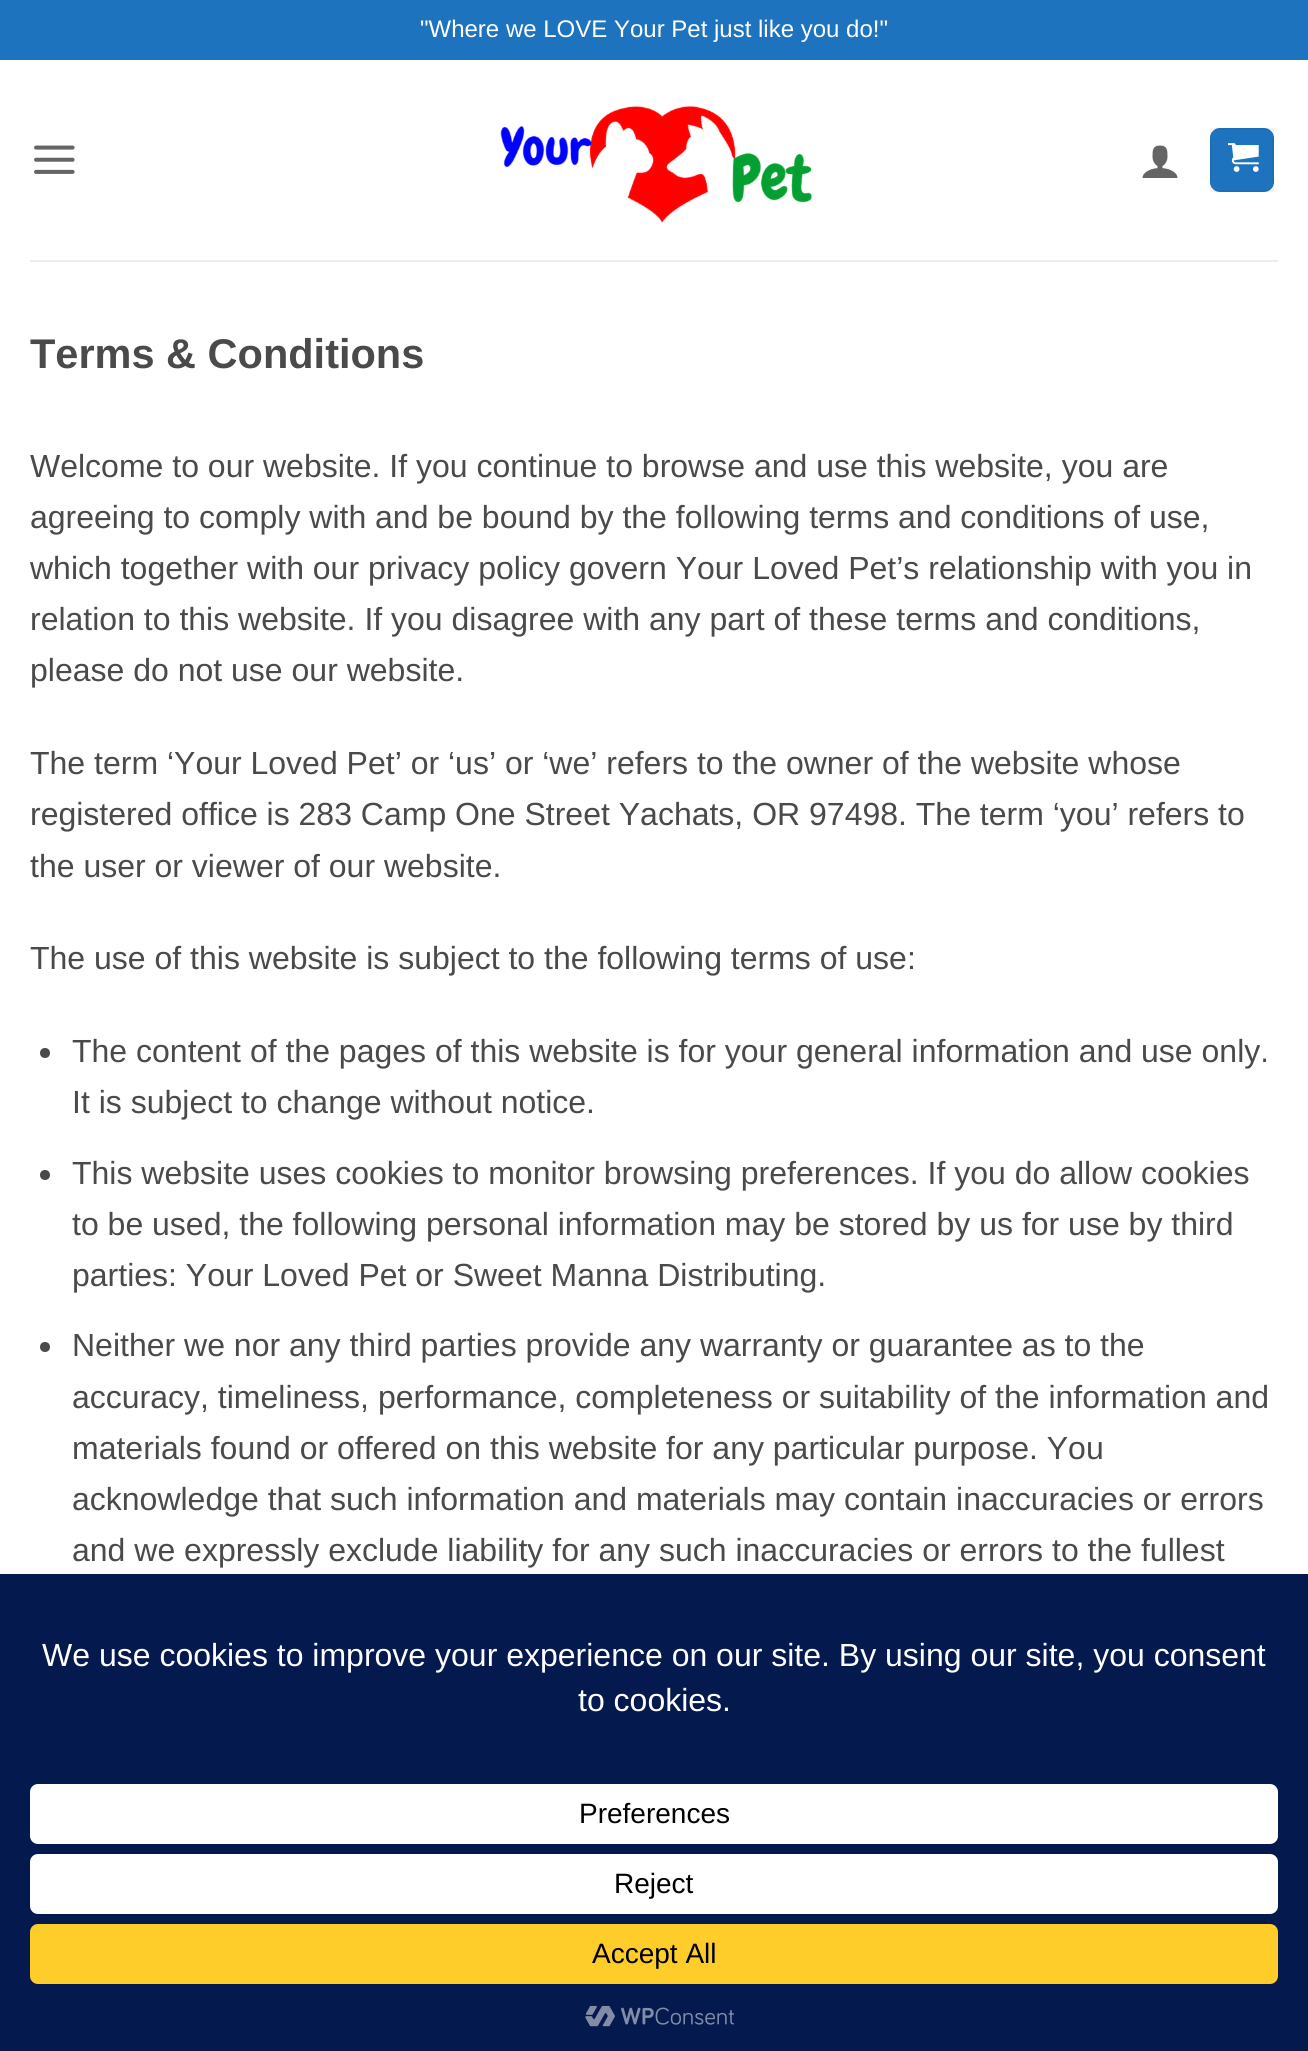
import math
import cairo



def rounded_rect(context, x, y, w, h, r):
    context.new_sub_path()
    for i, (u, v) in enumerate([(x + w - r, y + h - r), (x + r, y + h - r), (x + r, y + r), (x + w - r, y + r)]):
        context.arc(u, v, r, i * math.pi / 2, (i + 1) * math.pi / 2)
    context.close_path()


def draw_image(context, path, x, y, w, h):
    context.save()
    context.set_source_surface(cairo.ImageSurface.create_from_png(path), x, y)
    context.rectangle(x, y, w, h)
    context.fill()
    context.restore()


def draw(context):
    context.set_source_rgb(1, 1, 1)
    context.paint()
    context.set_source_rgb(30 / 255, 115 / 255, 190 / 255)
    context.rectangle(0, 0, 1308, 60)
    context.fill()
    draw_image(context, "images/1.png", 34, 145, 41, 29)
    draw_image(context, "images/2.png", 500, 105, 312, 118)
    draw_image(context, "images/3.png", 1142, 145, 36, 33)
    rounded_rect(context, 1210, 128, 64, 64, 10)
    context.fill()
    context.rectangle(1211, 129, 62, 62)
    context.set_source_rgba(0, 0, 0, 0.05)
    context.stroke()
    draw_image(context, "images/4.png", 1228, 143, 31, 29)
    context.set_source_rgb(237 / 255, 237 / 255, 237 / 255)
    context.rectangle(30, 260, 1248, 2)
    context.fill()
    context.set_source_rgb(74 / 255, 74 / 255, 74 / 255)
    context.arc(45, 1053, 5, 0, 2 * math.pi)
    context.fill()
    context.arc(45, 1175, 5, 0, 2 * math.pi)
    context.fill()
    context.arc(45, 1347, 5, 0, 2 * math.pi)
    context.fill()
    context.set_source_rgb(4 / 255, 25 / 255, 78 / 255)
    context.rectangle(0, 1574, 1308, 477)
    context.fill()
    context.set_source_rgb(1, 1, 1)
    rounded_rect(context, 30, 1784, 1248, 60, 8)
    context.fill()
    rounded_rect(context, 30, 1854, 1248, 60, 8)
    context.fill()
    context.set_source_rgb(1, 205 / 255, 42 / 255)
    rounded_rect(context, 30, 1924, 1248, 60, 8)
    context.fill()
    draw_image(context, "images/5.png", 585, 2005, 149, 22)
    context.select_font_face("Liberation Sans")
    context.set_font_size(24)
    context.set_source_rgb(1, 1, 1)
    context.move_to(420, 37)
    context.show_text("\"Where we LOVE Your Pet just like you do!\"")
    context.select_font_face("Liberation Sans", cairo.FontSlant.NORMAL, cairo.FontWeight.BOLD)
    context.set_font_size(41.5)
    context.set_source_rgb(74 / 255, 74 / 255, 74 / 255)
    context.move_to(30, 368)
    context.show_text("Terms & Conditions")
    context.select_font_face("Liberation Sans")
    context.set_font_size(32)
    context.move_to(30, 477)
    context.show_text("Welcome to our website. If you continue to browse and use this website, you are")
    context.move_to(30, 528)
    context.show_text("agreeing to comply with and be bound by the following terms and conditions of use,")
    context.move_to(30, 579)
    context.show_text("which together with our privacy policy govern Your Loved Pet’s relationship with you in")
    context.move_to(30, 630)
    context.show_text("relation to this website. If you disagree with any part of these terms and conditions,")
    context.move_to(30, 681)
    context.show_text("please do not use our website.")
    context.move_to(30, 774)
    context.show_text("The term ‘Your Loved Pet’ or ‘us’ or ‘we’ refers to the owner of the website whose")
    context.move_to(30, 825)
    context.show_text("registered office is 283 Camp One Street Yachats, OR 97498. The term ‘you’ refers to")
    context.move_to(30, 877)
    context.show_text("the user or viewer of our website.")
    context.move_to(30, 969)
    context.show_text("The use of this website is subject to the following terms of use:")
    context.move_to(72, 1062)
    context.show_text("The content of the pages of this website is for your general information and use only.")
    context.move_to(72, 1113)
    context.show_text("It is subject to change without notice.")
    context.move_to(72, 1184)
    context.show_text("This website uses cookies to monitor browsing preferences. If you do allow cookies")
    context.move_to(72, 1235)
    context.show_text("to be used, the following personal information may be stored by us for use by third")
    context.move_to(72, 1286)
    context.show_text("parties: Your Loved Pet or Sweet Manna Distributing.")
    context.move_to(72, 1356)
    context.show_text("Neither we nor any third parties provide any warranty or guarantee as to the")
    context.move_to(72, 1408)
    context.show_text("accuracy, timeliness, performance, completeness or suitability of the information and")
    context.move_to(72, 1459)
    context.show_text("materials found or offered on this website for any particular purpose. You")
    context.move_to(72, 1510)
    context.show_text("acknowledge that such information and materials may contain inaccuracies or errors")
    context.move_to(72, 1561)
    context.show_text("and we expressly exclude liability for any such inaccuracies or errors to the fullest")
    context.set_source_rgb(1, 1, 1)
    context.move_to(42, 1666)
    context.show_text("We use cookies to improve your experience on our site. By using our site, you consent")
    context.move_to(578, 1711)
    context.show_text("to cookies.")
    context.set_font_size(28)
    context.set_source_rgb(0, 0, 0)
    context.move_to(579, 1823)
    context.show_text("Preferences")
    context.move_to(614, 1893)
    context.show_text("Reject")
    context.move_to(592, 1963)
    context.show_text("Accept All")


surface = cairo.ImageSurface(cairo.Format.RGB24, 1308, 2051)
context = cairo.Context(surface)
options = cairo.FontOptions()
options.set_hint_metrics(cairo.HintMetrics.OFF)
options.set_hint_style(cairo.HintStyle.NONE)
context.set_font_options(options)
context.set_miter_limit(4)
draw(context)
surface.write_to_png("out.png")
